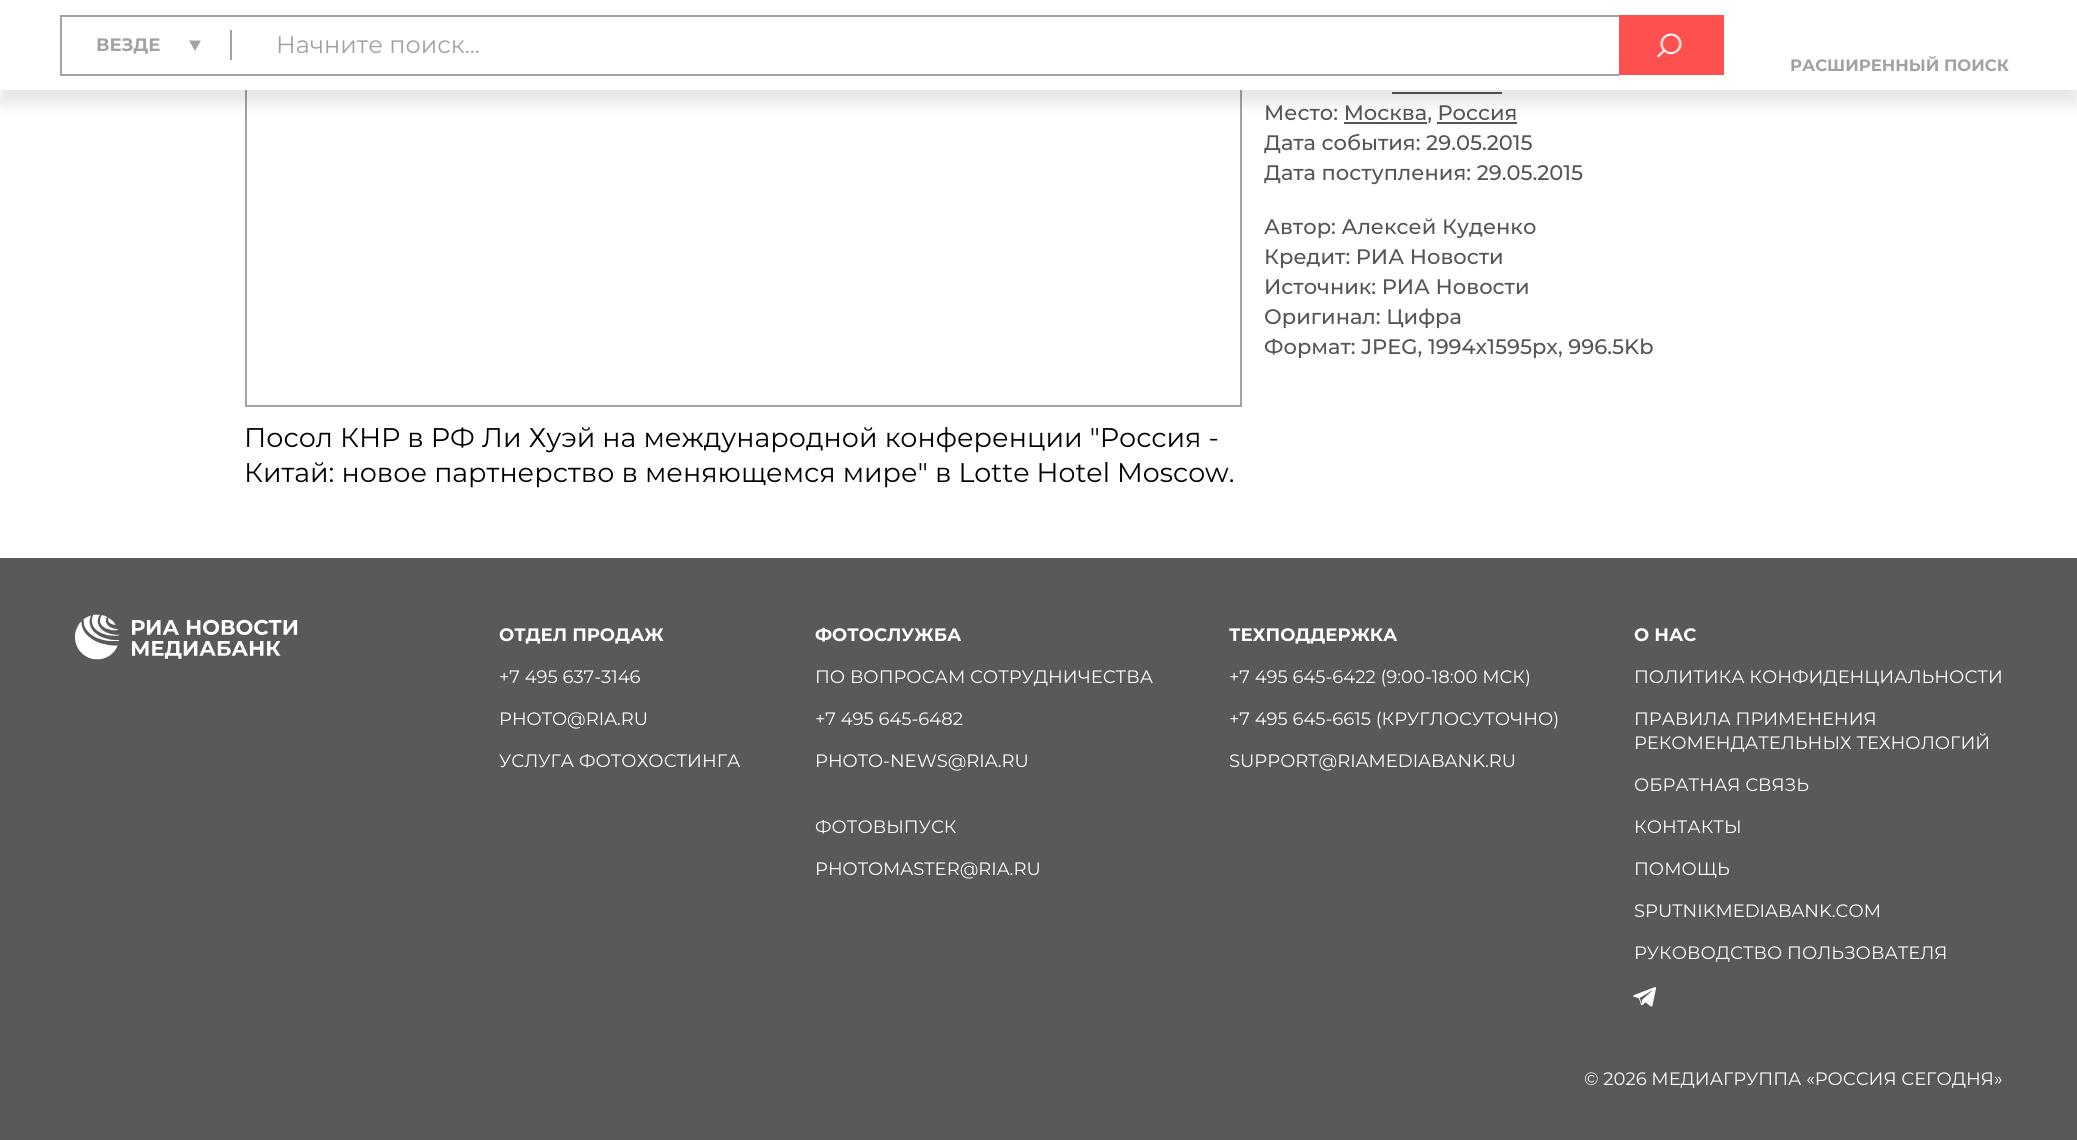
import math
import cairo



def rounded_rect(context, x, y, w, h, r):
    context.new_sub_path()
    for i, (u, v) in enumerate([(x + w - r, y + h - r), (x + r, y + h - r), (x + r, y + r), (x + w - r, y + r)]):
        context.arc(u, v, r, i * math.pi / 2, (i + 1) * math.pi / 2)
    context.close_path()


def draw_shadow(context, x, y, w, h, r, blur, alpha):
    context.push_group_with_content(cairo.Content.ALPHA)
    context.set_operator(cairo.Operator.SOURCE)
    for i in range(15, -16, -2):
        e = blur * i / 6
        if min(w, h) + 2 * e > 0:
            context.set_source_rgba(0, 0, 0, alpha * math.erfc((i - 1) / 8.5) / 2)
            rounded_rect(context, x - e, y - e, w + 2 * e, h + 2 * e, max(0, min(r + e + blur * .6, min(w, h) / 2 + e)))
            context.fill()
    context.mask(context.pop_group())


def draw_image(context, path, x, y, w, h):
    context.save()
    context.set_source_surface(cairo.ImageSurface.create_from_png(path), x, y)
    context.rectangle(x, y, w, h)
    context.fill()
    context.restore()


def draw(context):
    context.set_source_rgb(1, 1, 1)
    context.paint()
    context.set_source_rgb(85 / 255, 85 / 255, 85 / 255)
    context.rectangle(1392, 92, 110, 2)
    context.fill()
    context.rectangle(1344, 122, 83, 2)
    context.fill()
    context.rectangle(1437, 122, 80, 2)
    context.fill()
    context.rectangle(246, -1, 995, 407)
    context.set_source_rgb(163 / 255, 162 / 255, 162 / 255)
    context.stroke()
    context.set_source_rgb(0, 0, 0)
    draw_shadow(context, 0, -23, 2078, 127, 0, 7.5, 0.1)
    context.set_source_rgb(1, 1, 1)
    context.rectangle(0, 0, 2077, 90)
    context.fill()
    context.set_source_rgb(163 / 255, 162 / 255, 162 / 255)
    context.rectangle(60, 15, 1559, 2)
    context.fill()
    context.rectangle(60, 74, 1559, 2)
    context.fill()
    context.rectangle(60, 15, 2, 60)
    context.fill()
    context.new_path()
    context.move_to(189, 40.5)
    context.line_to(201, 40.5)
    context.line_to(195, 51)
    context.close_path()
    context.fill()
    context.rectangle(230, 30, 2, 30)
    context.fill()
    context.set_source_rgb(1, 80 / 255, 80 / 255)
    context.rectangle(1619, 15, 105, 60)
    context.fill()
    draw_image(context, "images/1.png", 1656, 33, 26, 25)
    context.set_source_rgb(89 / 255, 89 / 255, 89 / 255)
    context.rectangle(0, 558, 2077, 582)
    context.fill()
    draw_image(context, "images/2.png", 75, 614, 223, 46)
    draw_image(context, "images/3.png", 1633, 987, 23, 20)
    context.select_font_face("Montserrat", cairo.FontSlant.NORMAL, cairo.FontWeight.BOLD)
    context.set_font_size(18)
    context.set_source_rgb(163 / 255, 162 / 255, 162 / 255)
    context.move_to(96, 51)
    context.show_text("ВЕЗДЕ")
    context.select_font_face("Montserrat")
    context.set_font_size(24)
    context.move_to(276, 53)
    context.show_text("Начните поиск...")
    context.select_font_face("Montserrat", cairo.FontSlant.NORMAL, cairo.FontWeight.BOLD)
    context.set_font_size(16.5)
    context.move_to(1790, 71)
    context.show_text("РАСШИРЕННЫЙ ПОИСК")
    context.select_font_face("Montserrat Medium")
    context.set_font_size(21)
    context.set_source_rgb(85 / 255, 85 / 255, 85 / 255)
    context.move_to(1264, 120)
    context.show_text("Место: Москва, Россия")
    context.move_to(1264, 150)
    context.show_text("Дата события: 29.05.2015")
    context.move_to(1264, 180)
    context.show_text("Дата поступления: 29.05.2015")
    context.move_to(1264, 234)
    context.show_text("Автор: Алексей Куденко")
    context.move_to(1264, 264)
    context.show_text("Кредит: РИА Новости")
    context.move_to(1264, 294)
    context.show_text("Источник: РИА Новости")
    context.move_to(1264, 324)
    context.show_text("Оригинал: Цифра")
    context.move_to(1264, 354)
    context.show_text("Формат: JPEG, 1994x1595px, 996.5Kb")
    context.select_font_face("Montserrat")
    context.set_font_size(27)
    context.set_source_rgb(0, 0, 0)
    context.move_to(244, 447)
    context.show_text("Посол КНР в РФ Ли Хуэй на международной конференции \"Россия -")
    context.move_to(244, 482)
    context.show_text("Китай: новое партнерство в меняющемся мире\" в Lotte Hotel Moscow.")
    context.select_font_face("Montserrat", cairo.FontSlant.NORMAL, cairo.FontWeight.BOLD)
    context.set_font_size(18)
    context.set_source_rgb(1, 1, 1)
    context.move_to(499, 641)
    context.show_text("ОТДЕЛ ПРОДАЖ")
    context.select_font_face("Montserrat")
    context.move_to(499, 683)
    context.show_text("+7 495 637-3146")
    context.move_to(499, 725)
    context.show_text("PHOTO@RIA.RU")
    context.move_to(499, 767)
    context.show_text("УСЛУГА ФОТОХОСТИНГА")
    context.select_font_face("Montserrat", cairo.FontSlant.NORMAL, cairo.FontWeight.BOLD)
    context.move_to(815, 641)
    context.show_text("ФОТОСЛУЖБА")
    context.select_font_face("Montserrat")
    context.move_to(815, 683)
    context.show_text("ПО ВОПРОСАМ СОТРУДНИЧЕСТВА")
    context.move_to(815, 725)
    context.show_text("+7 495 645-6482")
    context.move_to(815, 767)
    context.show_text("PHOTO-NEWS@RIA.RU")
    context.move_to(815, 833)
    context.show_text("ФОТОВЫПУСК")
    context.move_to(815, 875)
    context.show_text("PHOTOMASTER@RIA.RU")
    context.select_font_face("Montserrat", cairo.FontSlant.NORMAL, cairo.FontWeight.BOLD)
    context.move_to(1229, 641)
    context.show_text("ТЕХПОДДЕРЖКА")
    context.select_font_face("Montserrat")
    context.move_to(1229, 683)
    context.show_text("+7 495 645-6422 (9:00-18:00 МСК)")
    context.move_to(1229, 725)
    context.show_text("+7 495 645-6615 (КРУГЛОСУТОЧНО)")
    context.move_to(1229, 767)
    context.show_text("SUPPORT@RIAMEDIABANK.RU")
    context.select_font_face("Montserrat", cairo.FontSlant.NORMAL, cairo.FontWeight.BOLD)
    context.move_to(1634, 641)
    context.show_text("О НАС")
    context.select_font_face("Montserrat")
    context.move_to(1634, 683)
    context.show_text("ПОЛИТИКА КОНФИДЕНЦИАЛЬНОСТИ")
    context.move_to(1634, 725)
    context.show_text("ПРАВИЛА ПРИМЕНЕНИЯ")
    context.move_to(1634, 749)
    context.show_text("РЕКОМЕНДАТЕЛЬНЫХ ТЕХНОЛОГИЙ")
    context.move_to(1634, 791)
    context.show_text("ОБРАТНАЯ СВЯЗЬ")
    context.move_to(1634, 833)
    context.show_text("КОНТАКТЫ")
    context.move_to(1634, 875)
    context.show_text("ПОМОЩЬ")
    context.move_to(1634, 917)
    context.show_text("SPUTNIKMEDIABANK.COM")
    context.move_to(1634, 959)
    context.show_text("РУКОВОДСТВО ПОЛЬЗОВАТЕЛЯ")
    context.move_to(1584, 1085)
    context.show_text("© 2026 МЕДИАГРУППА «РОССИЯ СЕГОДНЯ»")


surface = cairo.ImageSurface(cairo.Format.RGB24, 2077, 1140)
context = cairo.Context(surface)
options = cairo.FontOptions()
options.set_hint_metrics(cairo.HintMetrics.OFF)
options.set_hint_style(cairo.HintStyle.NONE)
context.set_font_options(options)
context.set_miter_limit(4)
draw(context)
surface.write_to_png("out.png")
